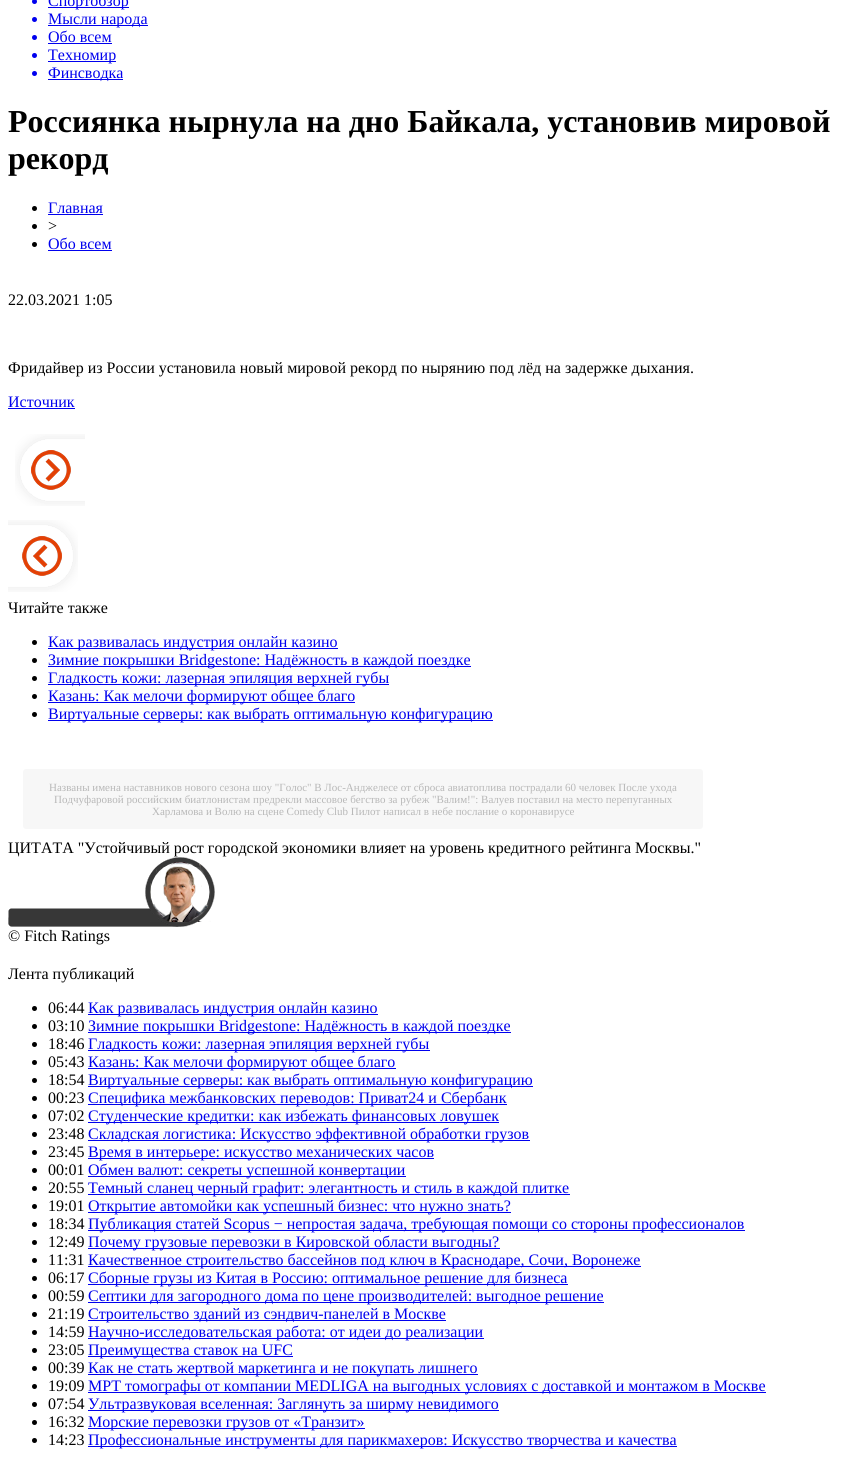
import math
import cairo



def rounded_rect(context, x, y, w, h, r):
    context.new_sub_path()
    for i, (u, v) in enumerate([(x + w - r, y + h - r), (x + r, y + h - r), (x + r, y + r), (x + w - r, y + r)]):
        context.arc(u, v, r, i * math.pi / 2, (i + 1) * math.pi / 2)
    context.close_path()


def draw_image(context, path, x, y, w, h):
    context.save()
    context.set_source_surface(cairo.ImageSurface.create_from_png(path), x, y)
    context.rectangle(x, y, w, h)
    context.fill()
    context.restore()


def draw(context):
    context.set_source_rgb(1, 1, 1)
    context.paint()
    context.set_source_rgb(0, 0, 238 / 255)
    context.arc(34.5, 1.5, 2.5, 0, 2 * math.pi)
    context.fill()
    context.rectangle(48, 7, 81, 1)
    context.fill()
    context.arc(34.5, 19.5, 2.5, 0, 2 * math.pi)
    context.fill()
    context.rectangle(48, 25, 100, 1)
    context.fill()
    context.arc(34.5, 37.5, 2.5, 0, 2 * math.pi)
    context.fill()
    context.rectangle(48, 43, 64, 1)
    context.fill()
    context.arc(34.5, 55.5, 2.5, 0, 2 * math.pi)
    context.fill()
    context.rectangle(48, 61, 68, 1)
    context.fill()
    context.arc(34.5, 73.5, 2.5, 0, 2 * math.pi)
    context.fill()
    context.rectangle(48, 79, 75, 1)
    context.fill()
    context.set_source_rgb(0, 0, 0)
    context.arc(34.5, 208.5, 2.5, 0, 2 * math.pi)
    context.fill()
    context.set_source_rgb(0, 0, 238 / 255)
    context.rectangle(48, 214, 55, 1)
    context.fill()
    context.set_source_rgb(0, 0, 0)
    context.arc(34.5, 226.5, 2.5, 0, 2 * math.pi)
    context.fill()
    context.arc(34.5, 244.5, 2.5, 0, 2 * math.pi)
    context.fill()
    context.set_source_rgb(0, 0, 238 / 255)
    context.rectangle(48, 250, 64, 1)
    context.fill()
    context.rectangle(8, 408, 67, 1)
    context.fill()
    draw_image(context, "images/1.png", 15, 434, 70, 72)
    draw_image(context, "images/2.png", 8, 520, 70, 72)
    context.set_source_rgb(0, 0, 0)
    context.arc(34.5, 642.5, 2.5, 0, 2 * math.pi)
    context.fill()
    context.set_source_rgb(0, 0, 238 / 255)
    context.rectangle(48, 648, 290, 1)
    context.fill()
    context.set_source_rgb(0, 0, 0)
    context.arc(34.5, 660.5, 2.5, 0, 2 * math.pi)
    context.fill()
    context.set_source_rgb(0, 0, 238 / 255)
    context.rectangle(48, 666, 423, 1)
    context.fill()
    context.set_source_rgb(0, 0, 0)
    context.arc(34.5, 678.5, 2.5, 0, 2 * math.pi)
    context.fill()
    context.set_source_rgb(0, 0, 238 / 255)
    context.rectangle(48, 684, 341, 1)
    context.fill()
    context.set_source_rgb(0, 0, 0)
    context.arc(34.5, 696.5, 2.5, 0, 2 * math.pi)
    context.fill()
    context.set_source_rgb(0, 0, 238 / 255)
    context.rectangle(48, 702, 307, 1)
    context.fill()
    context.set_source_rgb(0, 0, 0)
    context.arc(34.5, 714.5, 2.5, 0, 2 * math.pi)
    context.fill()
    context.set_source_rgb(0, 0, 238 / 255)
    context.rectangle(48, 720, 445, 1)
    context.fill()
    context.set_source_rgb(247 / 255, 247 / 255, 247 / 255)
    rounded_rect(context, 23, 769, 680, 60, 3)
    context.fill()
    draw_image(context, "images/3.png", 8, 857, 207, 70)
    context.set_source_rgb(0, 0, 0)
    context.arc(34.5, 1008.5, 2.5, 0, 2 * math.pi)
    context.fill()
    context.set_source_rgb(0, 0, 238 / 255)
    context.rectangle(88, 1014, 290, 1)
    context.fill()
    context.set_source_rgb(0, 0, 0)
    context.arc(34.5, 1026.5, 2.5, 0, 2 * math.pi)
    context.fill()
    context.set_source_rgb(0, 0, 238 / 255)
    context.rectangle(88, 1032, 423, 1)
    context.fill()
    context.set_source_rgb(0, 0, 0)
    context.arc(34.5, 1044.5, 2.5, 0, 2 * math.pi)
    context.fill()
    context.set_source_rgb(0, 0, 238 / 255)
    context.rectangle(88, 1050, 342, 1)
    context.fill()
    context.set_source_rgb(0, 0, 0)
    context.arc(34.5, 1062.5, 2.5, 0, 2 * math.pi)
    context.fill()
    context.set_source_rgb(0, 0, 238 / 255)
    context.rectangle(88, 1068, 308, 1)
    context.fill()
    context.set_source_rgb(0, 0, 0)
    context.arc(34.5, 1080.5, 2.5, 0, 2 * math.pi)
    context.fill()
    context.set_source_rgb(0, 0, 238 / 255)
    context.rectangle(88, 1086, 445, 1)
    context.fill()
    context.set_source_rgb(0, 0, 0)
    context.arc(34.5, 1098.5, 2.5, 0, 2 * math.pi)
    context.fill()
    context.set_source_rgb(0, 0, 238 / 255)
    context.rectangle(88, 1104, 419, 1)
    context.fill()
    context.set_source_rgb(0, 0, 0)
    context.arc(34.5, 1116.5, 2.5, 0, 2 * math.pi)
    context.fill()
    context.set_source_rgb(0, 0, 238 / 255)
    context.rectangle(88, 1122, 411, 1)
    context.fill()
    context.set_source_rgb(0, 0, 0)
    context.arc(34.5, 1134.5, 2.5, 0, 2 * math.pi)
    context.fill()
    context.set_source_rgb(0, 0, 238 / 255)
    context.rectangle(88, 1140, 442, 1)
    context.fill()
    context.set_source_rgb(0, 0, 0)
    context.arc(34.5, 1152.5, 2.5, 0, 2 * math.pi)
    context.fill()
    context.set_source_rgb(0, 0, 238 / 255)
    context.rectangle(88, 1158, 346, 1)
    context.fill()
    context.set_source_rgb(0, 0, 0)
    context.arc(34.5, 1170.5, 2.5, 0, 2 * math.pi)
    context.fill()
    context.set_source_rgb(0, 0, 238 / 255)
    context.rectangle(88, 1176, 318, 1)
    context.fill()
    context.set_source_rgb(0, 0, 0)
    context.arc(34.5, 1188.5, 2.5, 0, 2 * math.pi)
    context.fill()
    context.set_source_rgb(0, 0, 238 / 255)
    context.rectangle(88, 1194, 482, 1)
    context.fill()
    context.set_source_rgb(0, 0, 0)
    context.arc(34.5, 1206.5, 2.5, 0, 2 * math.pi)
    context.fill()
    context.set_source_rgb(0, 0, 238 / 255)
    context.rectangle(88, 1212, 423, 1)
    context.fill()
    context.set_source_rgb(0, 0, 0)
    context.arc(34.5, 1224.5, 2.5, 0, 2 * math.pi)
    context.fill()
    context.set_source_rgb(0, 0, 238 / 255)
    context.rectangle(88, 1230, 657, 1)
    context.fill()
    context.set_source_rgb(0, 0, 0)
    context.arc(34.5, 1242.5, 2.5, 0, 2 * math.pi)
    context.fill()
    context.set_source_rgb(0, 0, 238 / 255)
    context.rectangle(88, 1248, 412, 1)
    context.fill()
    context.set_source_rgb(0, 0, 0)
    context.arc(34.5, 1260.5, 2.5, 0, 2 * math.pi)
    context.fill()
    context.set_source_rgb(0, 0, 238 / 255)
    context.rectangle(88, 1266, 553, 1)
    context.fill()
    context.set_source_rgb(0, 0, 0)
    context.arc(34.5, 1278.5, 2.5, 0, 2 * math.pi)
    context.fill()
    context.set_source_rgb(0, 0, 238 / 255)
    context.rectangle(88, 1284, 480, 1)
    context.fill()
    context.set_source_rgb(0, 0, 0)
    context.arc(34.5, 1296.5, 2.5, 0, 2 * math.pi)
    context.fill()
    context.set_source_rgb(0, 0, 238 / 255)
    context.rectangle(88, 1302, 516, 1)
    context.fill()
    context.set_source_rgb(0, 0, 0)
    context.arc(34.5, 1314.5, 2.5, 0, 2 * math.pi)
    context.fill()
    context.set_source_rgb(0, 0, 238 / 255)
    context.rectangle(88, 1320, 358, 1)
    context.fill()
    context.set_source_rgb(0, 0, 0)
    context.arc(34.5, 1332.5, 2.5, 0, 2 * math.pi)
    context.fill()
    context.set_source_rgb(0, 0, 238 / 255)
    context.rectangle(88, 1338, 396, 1)
    context.fill()
    context.set_source_rgb(0, 0, 0)
    context.arc(34.5, 1350.5, 2.5, 0, 2 * math.pi)
    context.fill()
    context.set_source_rgb(0, 0, 238 / 255)
    context.rectangle(88, 1356, 205, 1)
    context.fill()
    context.set_source_rgb(0, 0, 0)
    context.arc(34.5, 1368.5, 2.5, 0, 2 * math.pi)
    context.fill()
    context.set_source_rgb(0, 0, 238 / 255)
    context.rectangle(88, 1374, 390, 1)
    context.fill()
    context.set_source_rgb(0, 0, 0)
    context.arc(34.5, 1386.5, 2.5, 0, 2 * math.pi)
    context.fill()
    context.set_source_rgb(0, 0, 238 / 255)
    context.rectangle(88, 1392, 678, 1)
    context.fill()
    context.set_source_rgb(0, 0, 0)
    context.arc(34.5, 1404.5, 2.5, 0, 2 * math.pi)
    context.fill()
    context.set_source_rgb(0, 0, 238 / 255)
    context.rectangle(88, 1410, 411, 1)
    context.fill()
    context.set_source_rgb(0, 0, 0)
    context.arc(34.5, 1422.5, 2.5, 0, 2 * math.pi)
    context.fill()
    context.set_source_rgb(0, 0, 238 / 255)
    context.rectangle(88, 1428, 277, 1)
    context.fill()
    context.set_source_rgb(0, 0, 0)
    context.arc(34.5, 1440.5, 2.5, 0, 2 * math.pi)
    context.fill()
    context.set_source_rgb(0, 0, 238 / 255)
    context.rectangle(88, 1446, 589, 1)
    context.fill()
    context.select_font_face("Liberation Serif")
    context.set_font_size(16)
    context.move_to(48, 6)
    context.show_text("Спортобзор")
    context.move_to(48, 24)
    context.show_text("Мысли народа")
    context.move_to(48, 42)
    context.show_text("Обо всем")
    context.move_to(48, 60)
    context.show_text("Техномир")
    context.move_to(48, 78)
    context.show_text("Финсводка")
    context.select_font_face("Liberation Serif", cairo.FontSlant.NORMAL, cairo.FontWeight.BOLD)
    context.set_font_size(32)
    context.set_source_rgb(0, 0, 0)
    context.move_to(8, 132)
    context.show_text("Россиянка нырнула на дно Байкала, установив мировой")
    context.move_to(8, 169)
    context.show_text("рекорд")
    context.select_font_face("Liberation Serif")
    context.set_font_size(16)
    context.set_source_rgb(0, 0, 238 / 255)
    context.move_to(48, 213)
    context.show_text("Главная")
    context.set_source_rgb(0, 0, 0)
    context.move_to(48, 231)
    context.show_text(">")
    context.set_source_rgb(0, 0, 238 / 255)
    context.move_to(48, 249)
    context.show_text("Обо всем")
    context.set_source_rgb(0, 0, 0)
    context.move_to(8, 305)
    context.show_text("22.03.2021 1:05")
    context.move_to(8, 373)
    context.show_text("Фридайвер из России установила новый мировой рекорд по нырянию под лёд на задержке дыхания.")
    context.set_source_rgb(0, 0, 238 / 255)
    context.move_to(8, 407)
    context.show_text("Источник")
    context.set_source_rgb(0, 0, 0)
    context.move_to(8, 613)
    context.show_text("Читайте также")
    context.set_source_rgb(0, 0, 238 / 255)
    context.move_to(48, 647)
    context.show_text("Как развивалась индустрия онлайн казино")
    context.move_to(48, 665)
    context.show_text("Зимние покрышки Bridgestone: Надёжность в каждой поездке")
    context.move_to(48, 683)
    context.show_text("Гладкость кожи: лазерная эпиляция верхней губы")
    context.move_to(48, 701)
    context.show_text("Казань: Как мелочи формируют общее благо")
    context.move_to(48, 719)
    context.show_text("Виртуальные серверы: как выбрать оптимальную конфигурацию")
    context.set_font_size(11)
    context.set_source_rgb(184 / 255, 184 / 255, 184 / 255)
    context.move_to(49, 791)
    context.show_text("Названы имена наставников нового сезона шоу \"Голос\" В Лос-Анджелесе от сброса авиатоплива пострадали 60 человек После ухода")
    context.move_to(54, 803)
    context.show_text("Подчуфаровой российским биатлонистам предрекли массовое бегство за рубеж \"Валим!\": Валуев поставил на место перепуганных")
    context.move_to(152, 815)
    context.show_text("Харламова и Волю на сцене Comedy Club Пилот написал в небе послание о коронавирусе")
    context.set_font_size(16)
    context.set_source_rgb(0, 0, 0)
    context.move_to(8, 853)
    context.show_text("ЦИТАТА \"Устойчивый рост городской экономики влияет на уровень кредитного рейтинга Москвы.\"")
    context.move_to(8, 941)
    context.show_text("© Fitch Ratings")
    context.move_to(8, 979)
    context.show_text("Лента публикаций")
    context.move_to(48, 1013)
    context.show_text("06:44")
    context.set_source_rgb(0, 0, 238 / 255)
    context.move_to(88, 1013)
    context.show_text("Как развивалась индустрия онлайн казино")
    context.set_source_rgb(0, 0, 0)
    context.move_to(48, 1031)
    context.show_text("03:10")
    context.set_source_rgb(0, 0, 238 / 255)
    context.move_to(88, 1031)
    context.show_text("Зимние покрышки Bridgestone: Надёжность в каждой поездке")
    context.set_source_rgb(0, 0, 0)
    context.move_to(48, 1049)
    context.show_text("18:46")
    context.set_source_rgb(0, 0, 238 / 255)
    context.move_to(88, 1049)
    context.show_text("Гладкость кожи: лазерная эпиляция верхней губы")
    context.set_source_rgb(0, 0, 0)
    context.move_to(48, 1067)
    context.show_text("05:43")
    context.set_source_rgb(0, 0, 238 / 255)
    context.move_to(88, 1067)
    context.show_text("Казань: Как мелочи формируют общее благо")
    context.set_source_rgb(0, 0, 0)
    context.move_to(48, 1085)
    context.show_text("18:54")
    context.set_source_rgb(0, 0, 238 / 255)
    context.move_to(88, 1085)
    context.show_text("Виртуальные серверы: как выбрать оптимальную конфигурацию")
    context.set_source_rgb(0, 0, 0)
    context.move_to(48, 1103)
    context.show_text("00:23")
    context.set_source_rgb(0, 0, 238 / 255)
    context.move_to(88, 1103)
    context.show_text("Специфика межбанковских переводов: Приват24 и Сбербанк")
    context.set_source_rgb(0, 0, 0)
    context.move_to(48, 1121)
    context.show_text("07:02")
    context.set_source_rgb(0, 0, 238 / 255)
    context.move_to(88, 1121)
    context.show_text("Студенческие кредитки: как избежать финансовых ловушек")
    context.set_source_rgb(0, 0, 0)
    context.move_to(48, 1139)
    context.show_text("23:48")
    context.set_source_rgb(0, 0, 238 / 255)
    context.move_to(88, 1139)
    context.show_text("Складская логистика: Искусство эффективной обработки грузов")
    context.set_source_rgb(0, 0, 0)
    context.move_to(48, 1157)
    context.show_text("23:45")
    context.set_source_rgb(0, 0, 238 / 255)
    context.move_to(88, 1157)
    context.show_text("Время в интерьере: искусство механических часов")
    context.set_source_rgb(0, 0, 0)
    context.move_to(48, 1175)
    context.show_text("00:01")
    context.set_source_rgb(0, 0, 238 / 255)
    context.move_to(88, 1175)
    context.show_text("Обмен валют: секреты успешной конвертации")
    context.set_source_rgb(0, 0, 0)
    context.move_to(48, 1193)
    context.show_text("20:55")
    context.set_source_rgb(0, 0, 238 / 255)
    context.move_to(88, 1193)
    context.show_text("Темный сланец черный графит: элегантность и стиль в каждой плитке")
    context.set_source_rgb(0, 0, 0)
    context.move_to(48, 1211)
    context.show_text("19:01")
    context.set_source_rgb(0, 0, 238 / 255)
    context.move_to(88, 1211)
    context.show_text("Открытие автомойки как успешный бизнес: что нужно знать?")
    context.set_source_rgb(0, 0, 0)
    context.move_to(48, 1229)
    context.show_text("18:34")
    context.set_source_rgb(0, 0, 238 / 255)
    context.move_to(88, 1229)
    context.show_text("Публикация статей Scopus − непростая задача, требующая помощи со стороны профессионалов")
    context.set_source_rgb(0, 0, 0)
    context.move_to(48, 1247)
    context.show_text("12:49")
    context.set_source_rgb(0, 0, 238 / 255)
    context.move_to(88, 1247)
    context.show_text("Почему грузовые перевозки в Кировской области выгодны?")
    context.set_source_rgb(0, 0, 0)
    context.move_to(48, 1265)
    context.show_text("11:31")
    context.set_source_rgb(0, 0, 238 / 255)
    context.move_to(88, 1265)
    context.show_text("Качественное строительство бассейнов под ключ в Краснодаре, Сочи, Воронеже")
    context.set_source_rgb(0, 0, 0)
    context.move_to(48, 1283)
    context.show_text("06:17")
    context.set_source_rgb(0, 0, 238 / 255)
    context.move_to(88, 1283)
    context.show_text("Сборные грузы из Китая в Россию: оптимальное решение для бизнеса")
    context.set_source_rgb(0, 0, 0)
    context.move_to(48, 1301)
    context.show_text("00:59")
    context.set_source_rgb(0, 0, 238 / 255)
    context.move_to(88, 1301)
    context.show_text("Септики для загородного дома по цене производителей: выгодное решение")
    context.set_source_rgb(0, 0, 0)
    context.move_to(48, 1319)
    context.show_text("21:19")
    context.set_source_rgb(0, 0, 238 / 255)
    context.move_to(88, 1319)
    context.show_text("Cтроительство зданий из сэндвич-панелей в Москве")
    context.set_source_rgb(0, 0, 0)
    context.move_to(48, 1337)
    context.show_text("14:59")
    context.set_source_rgb(0, 0, 238 / 255)
    context.move_to(88, 1337)
    context.show_text("Научно-исследовательская работа: от идеи до реализации")
    context.set_source_rgb(0, 0, 0)
    context.move_to(48, 1355)
    context.show_text("23:05")
    context.set_source_rgb(0, 0, 238 / 255)
    context.move_to(88, 1355)
    context.show_text("Преимущества ставок на UFC")
    context.set_source_rgb(0, 0, 0)
    context.move_to(48, 1373)
    context.show_text("00:39")
    context.set_source_rgb(0, 0, 238 / 255)
    context.move_to(88, 1373)
    context.show_text("Как не стать жертвой маркетинга и не покупать лишнего")
    context.set_source_rgb(0, 0, 0)
    context.move_to(48, 1391)
    context.show_text("19:09")
    context.set_source_rgb(0, 0, 238 / 255)
    context.move_to(88, 1391)
    context.show_text("МРТ томографы от компании MEDLIGA на выгодных условиях с доставкой и монтажом в Москве")
    context.set_source_rgb(0, 0, 0)
    context.move_to(48, 1409)
    context.show_text("07:54")
    context.set_source_rgb(0, 0, 238 / 255)
    context.move_to(88, 1409)
    context.show_text("Ультразвуковая вселенная: Заглянуть за ширму невидимого")
    context.set_source_rgb(0, 0, 0)
    context.move_to(48, 1427)
    context.show_text("16:32")
    context.set_source_rgb(0, 0, 238 / 255)
    context.move_to(88, 1427)
    context.show_text("Морские перевозки грузов от «Транзит»")
    context.set_source_rgb(0, 0, 0)
    context.move_to(48, 1445)
    context.show_text("14:23")
    context.set_source_rgb(0, 0, 238 / 255)
    context.move_to(88, 1445)
    context.show_text("Профессиональные инструменты для парикмахеров: Искусство творчества и качества")


surface = cairo.ImageSurface(cairo.Format.RGB24, 866, 1468)
context = cairo.Context(surface)
options = cairo.FontOptions()
options.set_hint_metrics(cairo.HintMetrics.OFF)
options.set_hint_style(cairo.HintStyle.NONE)
context.set_font_options(options)
context.set_miter_limit(4)
draw(context)
surface.write_to_png("out.png")
